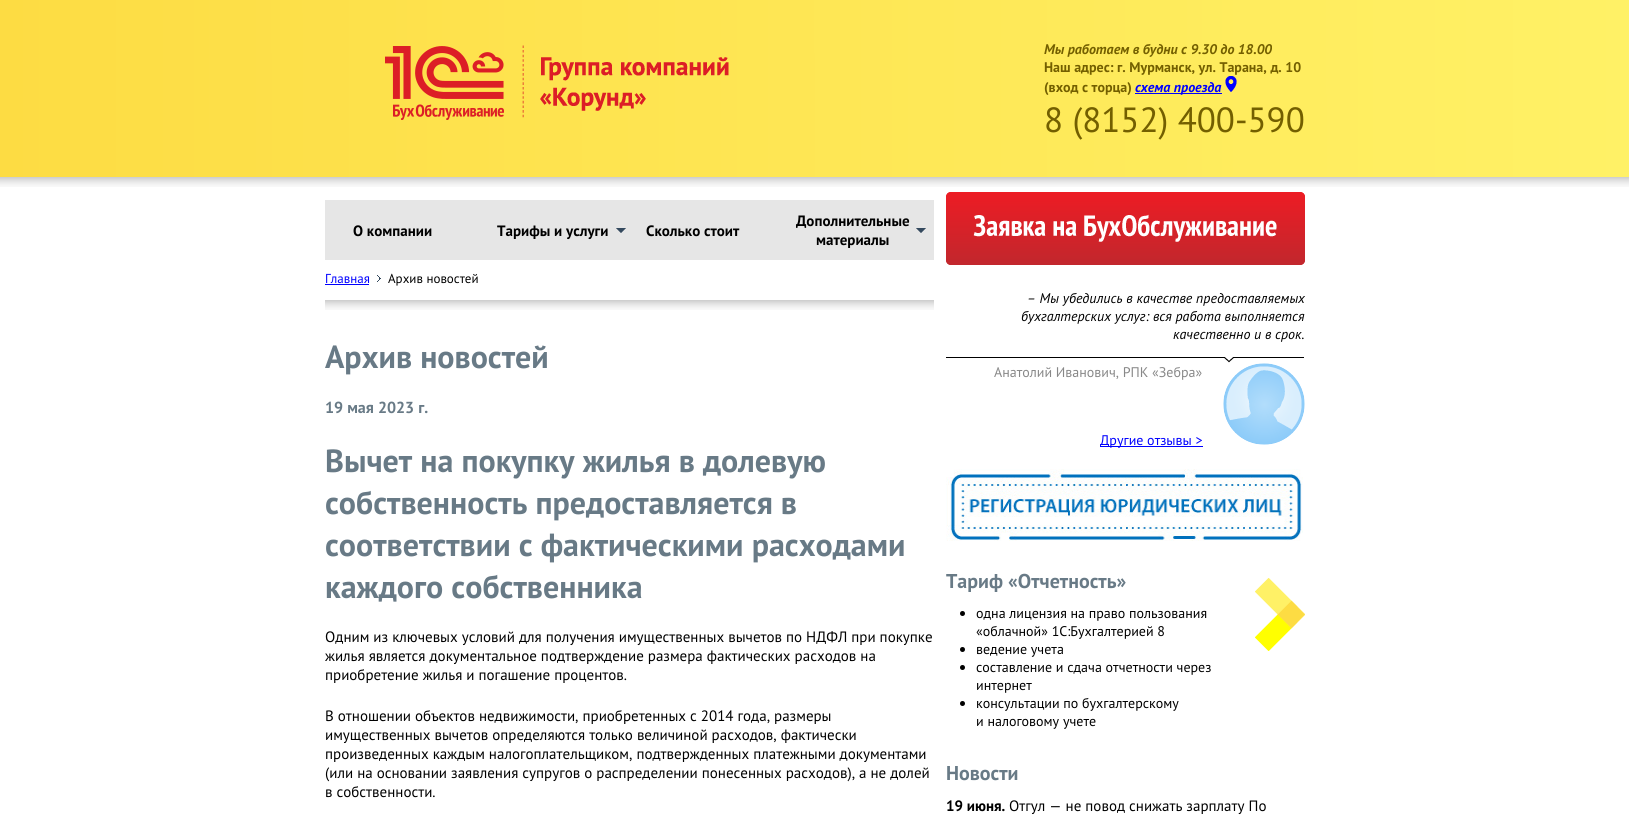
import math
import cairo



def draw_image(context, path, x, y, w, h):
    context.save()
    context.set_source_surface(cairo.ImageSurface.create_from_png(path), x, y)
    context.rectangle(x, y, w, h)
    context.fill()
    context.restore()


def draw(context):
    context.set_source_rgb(1, 1, 1)
    context.paint()
    gradient = cairo.LinearGradient(0, 89, 1629, 88)
    gradient.add_color_stop_rgba(0, 253 / 255, 220 / 255, 67 / 255, 1)
    gradient.add_color_stop_rgba(1, 1, 241 / 255, 102 / 255, 1)
    context.set_source(gradient)
    context.rectangle(0, 0, 1629, 177)
    context.fill()
    draw_image(context, "images/1.png", 385, 45, 344, 75)
    context.set_source_rgb(0, 0, 1)
    context.rectangle(1135, 93, 87, 1)
    context.fill()
    draw_image(context, "images/2.png", 1225, 76, 12, 16)
    draw_image(context, "images/3.png", 0, 177, 1629, 10)
    context.set_source_rgb(230 / 255, 230 / 255, 230 / 255)
    context.rectangle(325, 200, 609, 60)
    context.fill()
    draw_image(context, "images/4.png", 616, 228, 10, 5)
    draw_image(context, "images/4.png", 916, 228, 10, 5)
    draw_image(context, "images/5.png", 377, 275, 4, 7)
    context.set_source_rgb(0, 0, 1)
    context.rectangle(325, 284, 44, 1)
    context.fill()
    draw_image(context, "images/6.png", 325, 300, 609, 10)
    draw_image(context, "images/7.png", 946, 192, 359, 73)
    draw_image(context, "images/8.png", 946, 357, 358, 6)
    draw_image(context, "images/9.png", 1223, 363, 82, 82)
    context.rectangle(1100, 446, 103, 1)
    context.fill()
    draw_image(context, "images/10.png", 946, 469, 357, 72)
    context.set_source_rgb(0, 0, 0)
    context.arc(962.5, 613.5, 2.5, 0, 2 * math.pi)
    context.fill()
    context.arc(962.5, 649.5, 2.5, 0, 2 * math.pi)
    context.fill()
    context.arc(962.5, 667.5, 2.5, 0, 2 * math.pi)
    context.fill()
    context.arc(962.5, 703.5, 2.5, 0, 2 * math.pi)
    context.fill()
    draw_image(context, "images/11.png", 1255, 578, 50, 73)
    context.select_font_face("PT Sans", cairo.FontSlant.ITALIC, cairo.FontWeight.BOLD)
    context.set_font_size(14)
    context.set_source_rgb(115 / 255, 95 / 255, 0)
    context.move_to(1044, 54)
    context.show_text("Мы работаем в будни с 9.30 до 18.00")
    context.select_font_face("PT Sans", cairo.FontSlant.NORMAL, cairo.FontWeight.BOLD)
    context.move_to(1044, 72)
    context.show_text("Наш адрес: г. Мурманск, ул. Тарана, д. 10")
    context.move_to(1044, 92)
    context.show_text("(вход с торца)")
    context.select_font_face("PT Sans", cairo.FontSlant.ITALIC, cairo.FontWeight.BOLD)
    context.set_source_rgb(0, 0, 1)
    context.move_to(1135, 92)
    context.show_text("схема проезда")
    context.select_font_face("PT Sans")
    context.set_font_size(35)
    context.set_source_rgb(115 / 255, 95 / 255, 0)
    context.move_to(1044, 132)
    context.show_text("8 (8152) 400-590")
    context.select_font_face("PT Sans", cairo.FontSlant.NORMAL, cairo.FontWeight.BOLD)
    context.set_font_size(15)
    context.set_source_rgb(0, 0, 0)
    context.move_to(353, 236)
    context.show_text("О компании")
    context.move_to(497, 236)
    context.show_text("Тарифы и услуги")
    context.move_to(646, 236)
    context.show_text("Сколько стоит")
    context.move_to(796, 226)
    context.show_text("Дополнительные")
    context.move_to(816, 245)
    context.show_text("материалы")
    context.select_font_face("PT Sans")
    context.set_font_size(13)
    context.set_source_rgb(0, 0, 1)
    context.move_to(325, 283)
    context.show_text("Главная")
    context.set_source_rgb(0, 0, 0)
    context.move_to(388, 283)
    context.show_text("Архив новостей")
    context.select_font_face("PT Sans", cairo.FontSlant.NORMAL, cairo.FontWeight.BOLD)
    context.set_font_size(32)
    context.set_source_rgb(104 / 255, 122 / 255, 134 / 255)
    context.move_to(325, 368)
    context.show_text("Архив новостей")
    context.set_font_size(16)
    context.move_to(325, 413)
    context.show_text("19 мая 2023 г.")
    context.set_font_size(32)
    context.move_to(325, 472)
    context.show_text("Вычет на покупку жилья в долевую")
    context.move_to(325, 514)
    context.show_text("собственность предоставляется в")
    context.move_to(325, 556)
    context.show_text("соответствии с фактическими расходами")
    context.move_to(325, 598)
    context.show_text("каждого собственника")
    context.select_font_face("PT Sans")
    context.set_font_size(15)
    context.set_source_rgb(0, 0, 0)
    context.move_to(325, 642)
    context.show_text("Одним из ключевых условий для получения имущественных вычетов по НДФЛ при покупке")
    context.move_to(325, 661)
    context.show_text("жилья является документальное подтверждение размера фактических расходов на")
    context.move_to(325, 680)
    context.show_text("приобретение жилья и погашение процентов.")
    context.move_to(325, 721)
    context.show_text("В отношении объектов недвижимости, приобретенных с 2014 года, размеры")
    context.move_to(325, 740)
    context.show_text("имущественных вычетов определяются только величиной расходов, фактически")
    context.move_to(325, 759)
    context.show_text("произведенных каждым налогоплательщиком, подтвержденных платежными документами")
    context.move_to(325, 778)
    context.show_text("(или на основании заявления супругов о распределении понесенных расходов), а не долей")
    context.move_to(325, 797)
    context.show_text("в собственности.")
    context.select_font_face("PT Sans", cairo.FontSlant.ITALIC)
    context.set_font_size(14)
    context.move_to(1027, 303)
    context.show_text("– Мы убедились в качестве предоставляемых")
    context.move_to(1021, 321)
    context.show_text("бухгалтерских услуг: вся работа выполняется")
    context.move_to(1173, 339)
    context.show_text("качественно и в срок.")
    context.select_font_face("PT Sans")
    context.set_source_rgb(136 / 255, 136 / 255, 136 / 255)
    context.move_to(994, 377)
    context.show_text("Анатолий Иванович, РПК «Зебра»")
    context.set_source_rgb(0, 0, 1)
    context.move_to(1100, 445)
    context.show_text("Другие отзывы >")
    context.select_font_face("PT Sans", cairo.FontSlant.NORMAL, cairo.FontWeight.BOLD)
    context.set_font_size(20)
    context.set_source_rgb(104 / 255, 122 / 255, 134 / 255)
    context.move_to(946, 588)
    context.show_text("Тариф «Отчетность»")
    context.select_font_face("PT Sans")
    context.set_font_size(14)
    context.set_source_rgb(0, 0, 0)
    context.move_to(976, 618)
    context.show_text("одна лицензия на право пользования")
    context.move_to(976, 636)
    context.show_text("«облачной» 1С:Бухгалтерией 8")
    context.move_to(976, 654)
    context.show_text("ведение учета")
    context.move_to(976, 672)
    context.show_text("составление и сдача отчетности через")
    context.move_to(976, 690)
    context.show_text("интернет")
    context.move_to(976, 708)
    context.show_text("консультации по бухгалтерскому")
    context.move_to(976, 726)
    context.show_text("и налоговому учете")
    context.select_font_face("PT Sans", cairo.FontSlant.NORMAL, cairo.FontWeight.BOLD)
    context.set_font_size(20)
    context.set_source_rgb(104 / 255, 122 / 255, 134 / 255)
    context.move_to(946, 780)
    context.show_text("Новости")
    context.set_font_size(15)
    context.set_source_rgb(0, 0, 0)
    context.move_to(946, 811)
    context.show_text("19 июня.")
    context.select_font_face("PT Sans")
    context.move_to(1009, 811)
    context.show_text("Отгул — не повод снижать зарплату По")


surface = cairo.ImageSurface(cairo.Format.RGB24, 1629, 827)
context = cairo.Context(surface)
options = cairo.FontOptions()
options.set_hint_metrics(cairo.HintMetrics.OFF)
options.set_hint_style(cairo.HintStyle.NONE)
context.set_font_options(options)
context.set_miter_limit(4)
draw(context)
surface.write_to_png("out.png")
